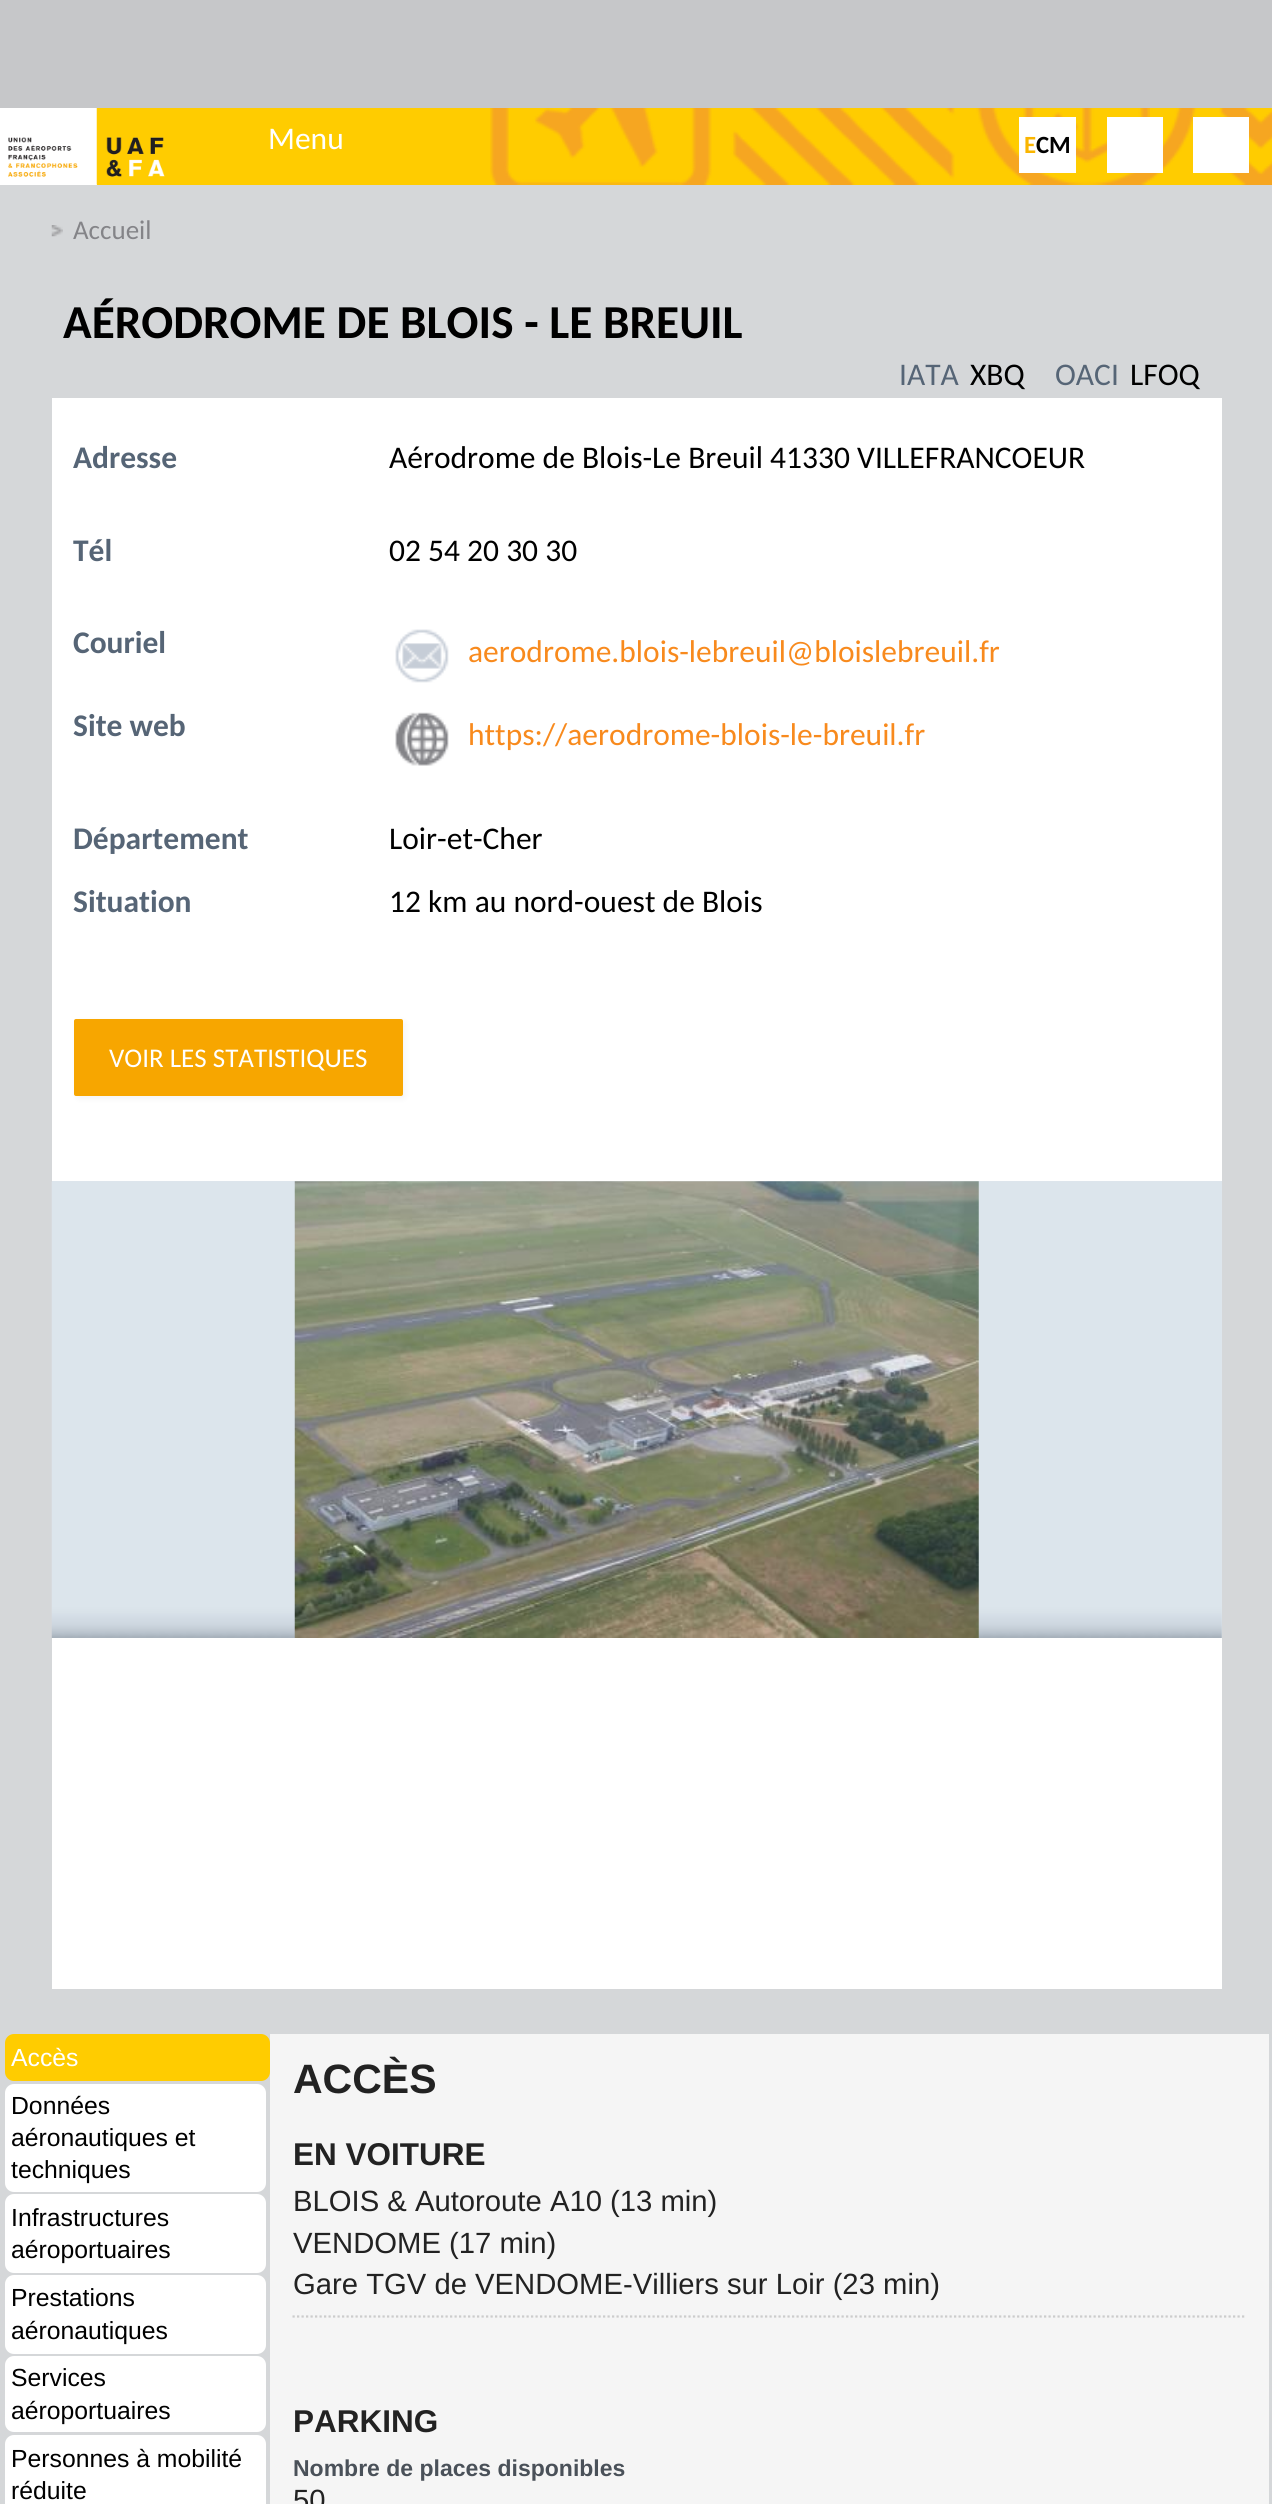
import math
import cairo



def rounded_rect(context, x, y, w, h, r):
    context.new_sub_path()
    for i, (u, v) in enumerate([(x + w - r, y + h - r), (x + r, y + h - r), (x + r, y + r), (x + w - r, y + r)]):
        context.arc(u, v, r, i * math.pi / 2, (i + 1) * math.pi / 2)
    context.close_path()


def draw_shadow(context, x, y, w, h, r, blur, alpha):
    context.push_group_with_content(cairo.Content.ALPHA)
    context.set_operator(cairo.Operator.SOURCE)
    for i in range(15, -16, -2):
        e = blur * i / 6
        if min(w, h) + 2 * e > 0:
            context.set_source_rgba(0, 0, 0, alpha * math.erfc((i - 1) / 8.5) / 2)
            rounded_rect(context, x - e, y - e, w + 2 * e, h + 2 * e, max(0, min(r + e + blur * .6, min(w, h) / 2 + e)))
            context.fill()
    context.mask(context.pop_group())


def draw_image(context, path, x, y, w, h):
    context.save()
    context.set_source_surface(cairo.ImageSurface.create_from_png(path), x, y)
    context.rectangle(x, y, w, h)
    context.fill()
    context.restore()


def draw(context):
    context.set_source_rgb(213 / 255, 215 / 255, 217 / 255)
    context.paint()
    context.set_source_rgb(198 / 255, 199 / 255, 201 / 255)
    context.rectangle(0, 0, 1272, 108)
    context.fill()
    context.set_source_rgb(1, 204 / 255, 0)
    context.rectangle(97, 108, 1175, 77)
    context.fill()
    draw_image(context, "images/1.png", 490, 108, 782, 77)
    context.set_source_rgb(1, 1, 1)
    context.rectangle(0, 108, 97, 77)
    context.fill()
    draw_image(context, "images/2.png", 8, 137, 70, 40)
    draw_image(context, "images/3.png", 96, 108, 69, 77)
    context.rectangle(1019, 117, 57, 56)
    context.fill()
    context.rectangle(1107, 117, 56, 56)
    context.fill()
    context.rectangle(1193, 117, 56, 56)
    context.fill()
    draw_image(context, "images/4.png", 51, 225, 12, 12)
    context.rectangle(52, 398, 1170, 1591)
    context.fill()
    draw_image(context, "images/5.png", 395, 629, 54, 54)
    draw_image(context, "images/6.png", 395, 712, 54, 54)
    context.set_source_rgb(0, 0, 0)
    draw_shadow(context, 77, 1022, 328, 76, 2, 3.5, 0.05)
    context.set_source_rgb(247 / 255, 166 / 255, 0)
    rounded_rect(context, 74, 1019, 329, 77, 2)
    context.fill()
    context.set_source_rgb(221 / 255, 229 / 255, 236 / 255)
    context.rectangle(52, 1181, 1170, 457)
    context.fill()
    draw_image(context, "images/7.png", 51, 1182, 1171, 456)
    draw_image(context, "images/8.png", 294, 1181, 685, 457)
    context.set_source_rgb(1, 204 / 255, 0)
    rounded_rect(context, 5, 2034, 265, 47, 9)
    context.fill()
    context.set_source_rgb(1, 1, 1)
    rounded_rect(context, 5, 2084, 261, 108, 9)
    context.fill()
    rounded_rect(context, 5, 2194, 261, 79, 9)
    context.fill()
    rounded_rect(context, 5, 2275, 261, 79, 9)
    context.fill()
    rounded_rect(context, 5, 2356, 261, 76, 9)
    context.fill()
    rounded_rect(context, 5, 2435, 261, 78, 9)
    context.fill()
    context.set_source_rgb(245 / 255, 245 / 255, 245 / 255)
    context.rectangle(270, 2034, 999, 470)
    context.fill()
    context.new_path()
    context.move_to(292.5, 2316.5)
    context.line_to(1246.5, 2316.5)
    context.set_source_rgb(204 / 255, 204 / 255, 204 / 255)
    context.set_line_width(2.2)
    context.set_dash([2.25, 2.25])
    context.stroke()
    context.select_font_face("Carlito")
    context.set_font_size(31.5)
    context.set_source_rgb(1, 1, 1)
    context.move_to(268, 149)
    context.show_text("Menu")
    context.select_font_face("Carlito", cairo.FontSlant.NORMAL, cairo.FontWeight.BOLD)
    context.set_font_size(24.75)
    context.set_source_rgb(250 / 255, 181 / 255, 0)
    context.move_to(1024, 153)
    context.show_text("E")
    context.set_source_rgb(0, 0, 0)
    context.move_to(1036, 153)
    context.show_text("CM")
    context.select_font_face("Carlito")
    context.set_font_size(27)
    context.set_source_rgb(132 / 255, 132 / 255, 136 / 255)
    context.move_to(73, 239)
    context.show_text("Accueil")
    context.select_font_face("Carlito", cairo.FontSlant.NORMAL, cairo.FontWeight.BOLD)
    context.set_font_size(47.25)
    context.set_source_rgb(0, 0, 0)
    context.move_to(63, 338)
    context.show_text("AÉRODROME DE BLOIS - LE BREUIL")
    context.select_font_face("Carlito")
    context.set_font_size(31.5)
    context.set_source_rgb(86 / 255, 101 / 255, 118 / 255)
    context.move_to(899, 385)
    context.show_text("IATA")
    context.set_source_rgb(0, 0, 0)
    context.move_to(970, 385)
    context.show_text("XBQ")
    context.set_source_rgb(86 / 255, 101 / 255, 118 / 255)
    context.move_to(1055, 385)
    context.show_text("OACI")
    context.set_source_rgb(0, 0, 0)
    context.move_to(1130, 385)
    context.show_text("LFOQ")
    context.select_font_face("Carlito", cairo.FontSlant.NORMAL, cairo.FontWeight.BOLD)
    context.set_source_rgb(86 / 255, 101 / 255, 118 / 255)
    context.move_to(73, 468)
    context.show_text("Adresse")
    context.select_font_face("Carlito")
    context.set_source_rgb(0, 0, 0)
    context.move_to(389, 468)
    context.show_text("Aérodrome de Blois-Le Breuil 41330 VILLEFRANCOEUR")
    context.select_font_face("Carlito", cairo.FontSlant.NORMAL, cairo.FontWeight.BOLD)
    context.set_source_rgb(86 / 255, 101 / 255, 118 / 255)
    context.move_to(73, 561)
    context.show_text("Tél")
    context.select_font_face("Carlito")
    context.set_source_rgb(0, 0, 0)
    context.move_to(389, 561)
    context.show_text("02 54 20 30 30")
    context.select_font_face("Carlito", cairo.FontSlant.NORMAL, cairo.FontWeight.BOLD)
    context.set_source_rgb(86 / 255, 101 / 255, 118 / 255)
    context.move_to(73, 653)
    context.show_text("Couriel")
    context.select_font_face("Carlito")
    context.set_source_rgb(248 / 255, 138 / 255, 29 / 255)
    context.move_to(468, 662)
    context.show_text("aerodrome.blois-lebreuil@bloislebreuil.fr")
    context.select_font_face("Carlito", cairo.FontSlant.NORMAL, cairo.FontWeight.BOLD)
    context.set_source_rgb(86 / 255, 101 / 255, 118 / 255)
    context.move_to(73, 736)
    context.show_text("Site web")
    context.select_font_face("Carlito")
    context.set_source_rgb(248 / 255, 138 / 255, 29 / 255)
    context.move_to(468, 745)
    context.show_text("https://aerodrome-blois-le-breuil.fr")
    context.select_font_face("Carlito", cairo.FontSlant.NORMAL, cairo.FontWeight.BOLD)
    context.set_source_rgb(86 / 255, 101 / 255, 118 / 255)
    context.move_to(73, 849)
    context.show_text("Département")
    context.select_font_face("Carlito")
    context.set_source_rgb(0, 0, 0)
    context.move_to(389, 849)
    context.show_text("Loir-et-Cher")
    context.select_font_face("Carlito", cairo.FontSlant.NORMAL, cairo.FontWeight.BOLD)
    context.set_source_rgb(86 / 255, 101 / 255, 118 / 255)
    context.move_to(73, 912)
    context.show_text("Situation")
    context.select_font_face("Carlito")
    context.set_source_rgb(0, 0, 0)
    context.move_to(389, 912)
    context.show_text("12 km au nord-ouest de Blois")
    context.set_font_size(27)
    context.set_source_rgb(1, 1, 1)
    context.move_to(109, 1067)
    context.show_text("VOIR LES STATISTIQUES")
    context.select_font_face("Liberation Sans")
    context.set_font_size(24.75)
    context.move_to(11, 2066)
    context.show_text("Accès")
    context.set_source_rgb(0, 0, 0)
    context.move_to(11, 2114)
    context.show_text("Données")
    context.move_to(11, 2146)
    context.show_text("aéronautiques et")
    context.move_to(11, 2178)
    context.show_text("techniques")
    context.move_to(11, 2226)
    context.show_text("Infrastructures")
    context.move_to(11, 2258)
    context.show_text("aéroportuaires")
    context.move_to(11, 2306)
    context.show_text("Prestations")
    context.move_to(11, 2339)
    context.show_text("aéronautiques")
    context.move_to(11, 2386)
    context.show_text("Services")
    context.move_to(11, 2419)
    context.show_text("aéroportuaires")
    context.move_to(11, 2467)
    context.show_text("Personnes à mobilité")
    context.move_to(11, 2499)
    context.show_text("réduite")
    context.select_font_face("Liberation Sans", cairo.FontSlant.NORMAL, cairo.FontWeight.BOLD)
    context.set_font_size(41)
    context.set_source_rgb(34 / 255, 34 / 255, 34 / 255)
    context.move_to(293, 2093)
    context.show_text("ACCÈS")
    context.set_font_size(31.5)
    context.move_to(293, 2165)
    context.show_text("EN VOITURE")
    context.select_font_face("Liberation Sans")
    context.set_font_size(29.25)
    context.move_to(293, 2211)
    context.show_text("BLOIS & Autoroute A10 (13 min)")
    context.move_to(293, 2253)
    context.show_text("VENDOME (17 min)")
    context.move_to(293, 2294)
    context.show_text("Gare TGV de VENDOME-Villiers sur Loir (23 min)")
    context.select_font_face("Liberation Sans", cairo.FontSlant.NORMAL, cairo.FontWeight.BOLD)
    context.set_font_size(31.5)
    context.move_to(293, 2432)
    context.show_text("PARKING")
    context.set_font_size(23)
    context.set_source_rgb(74 / 255, 81 / 255, 89 / 255)
    context.move_to(293, 2476)
    context.show_text("Nombre de places disponibles")
    context.select_font_face("Liberation Sans")
    context.set_font_size(29.25)
    context.set_source_rgb(34 / 255, 34 / 255, 34 / 255)
    context.move_to(293, 2510)
    context.show_text("50")


surface = cairo.ImageSurface(cairo.Format.RGB24, 1272, 2504)
context = cairo.Context(surface)
options = cairo.FontOptions()
options.set_hint_metrics(cairo.HintMetrics.OFF)
options.set_hint_style(cairo.HintStyle.NONE)
context.set_font_options(options)
context.set_miter_limit(4)
draw(context)
surface.write_to_png("out.png")
